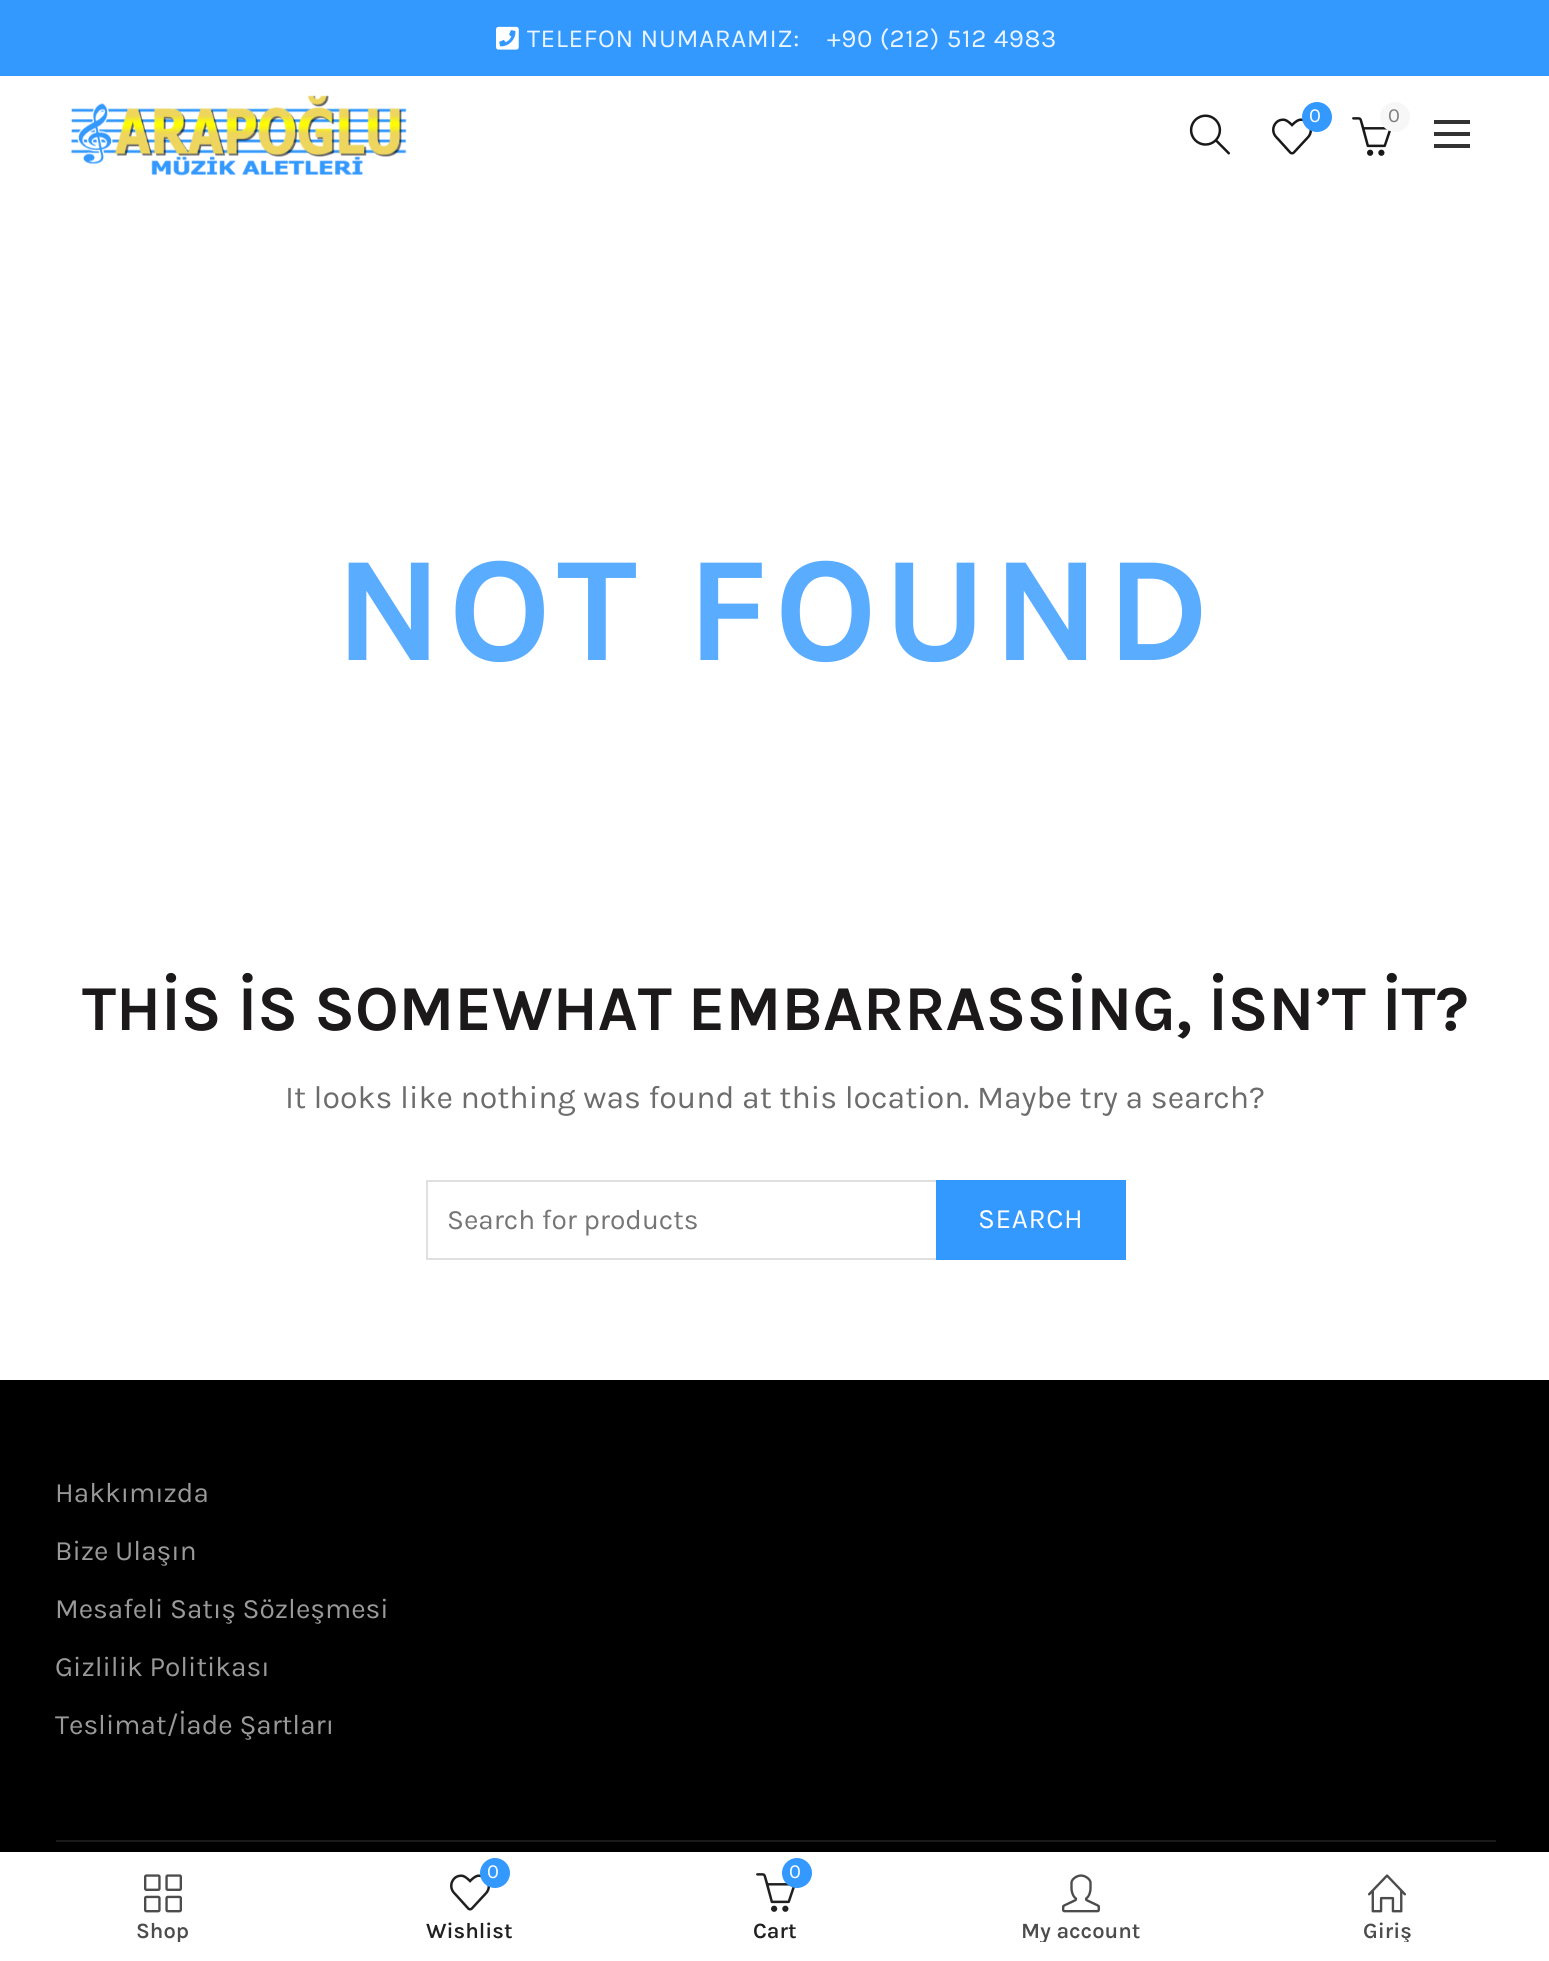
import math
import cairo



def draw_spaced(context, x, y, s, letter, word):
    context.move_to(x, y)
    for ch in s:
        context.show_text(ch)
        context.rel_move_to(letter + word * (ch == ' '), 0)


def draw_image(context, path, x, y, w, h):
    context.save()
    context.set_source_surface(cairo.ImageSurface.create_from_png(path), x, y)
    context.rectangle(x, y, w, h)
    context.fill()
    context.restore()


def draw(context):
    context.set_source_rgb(1, 1, 1)
    context.paint()
    context.set_source_rgb(51 / 255, 153 / 255, 1)
    context.rectangle(0, 0, 1549, 76)
    context.fill()
    draw_image(context, "images/1.png", 496, 26, 23, 24)
    draw_image(context, "images/2.png", 71, 95, 336, 81)
    draw_image(context, "images/3.png", 1189, 114, 41, 41)
    draw_image(context, "images/4.png", 1272, 118, 40, 37)
    context.arc(1317, 117, 15, 0, 2 * math.pi)
    context.fill()
    draw_image(context, "images/5.png", 1352, 117, 39, 39)
    context.set_source_rgb(247 / 255, 247 / 255, 247 / 255)
    context.arc(1395, 117, 15, 0, 2 * math.pi)
    context.fill()
    context.set_source_rgb(51 / 255, 51 / 255, 51 / 255)
    context.rectangle(1434, 132, 36, 4)
    context.fill()
    context.rectangle(1434, 120, 36, 4)
    context.fill()
    context.rectangle(1434, 144, 36, 4)
    context.fill()
    context.rectangle(427, 1181, 698, 78)
    context.set_source_rgb(224 / 255, 224 / 255, 224 / 255)
    context.stroke()
    context.set_source_rgb(51 / 255, 153 / 255, 1)
    context.rectangle(936, 1180, 190, 80)
    context.fill()
    context.set_source_rgb(0, 0, 0)
    context.rectangle(0, 1380, 1549, 472)
    context.fill()
    context.set_source_rgb(26 / 255, 26 / 255, 26 / 255)
    context.rectangle(56, 1840, 1440, 2)
    context.fill()
    draw_image(context, "images/6.png", 144, 1874, 38, 39)
    draw_image(context, "images/7.png", 450, 1874, 40, 37)
    context.set_source_rgb(51 / 255, 153 / 255, 1)
    context.arc(495, 1873, 15, 0, 2 * math.pi)
    context.fill()
    draw_image(context, "images/8.png", 756, 1873, 39, 39)
    context.arc(797, 1873, 15, 0, 2 * math.pi)
    context.fill()
    draw_image(context, "images/9.png", 1062, 1874, 38, 39)
    draw_image(context, "images/10.png", 1368, 1874, 38, 39)
    context.select_font_face("Karla")
    context.set_font_size(26)
    context.set_source_rgb(235 / 255, 245 / 255, 1)
    draw_spaced(context, 527, 47, "TELEFON NUMARAMIZ:", 0.6, 0)
    draw_spaced(context, 827, 47, "+90 (212) 512 4983", 0.6, 0)
    context.set_font_size(20)
    context.set_source_rgb(1, 1, 1)
    context.move_to(1309, 122)
    context.show_text("0")
    context.set_source_rgb(126 / 255, 126 / 255, 126 / 255)
    context.move_to(1388, 122)
    context.show_text("0")
    context.select_font_face("Karla", cairo.FontSlant.NORMAL, cairo.FontWeight.BOLD)
    context.set_font_size(150)
    context.set_source_rgb(90 / 255, 172 / 255, 254 / 255)
    draw_spaced(context, 335, 660, "NOT FOUND", 6, 0)
    context.set_font_size(64)
    context.set_source_rgb(27 / 255, 25 / 255, 25 / 255)
    context.move_to(82, 1030)
    context.show_text("THİS İS SOMEWHAT EMBARRASSİNG, İSN’T İT?")
    context.select_font_face("Karla")
    context.set_font_size(32)
    context.set_source_rgb(108 / 255, 108 / 255, 108 / 255)
    context.move_to(285, 1108)
    context.show_text("It looks like nothing was found at this location. Maybe try a search?")
    context.set_font_size(28)
    context.set_source_rgb(117 / 255, 117 / 255, 117 / 255)
    context.move_to(447, 1229)
    context.show_text("Search for products")
    context.set_source_rgb(1, 1, 1)
    draw_spaced(context, 978, 1228, "SEARCH", 0.6, 0)
    context.set_source_rgb(153 / 255, 153 / 255, 153 / 255)
    context.move_to(55, 1502)
    context.show_text("Hakkımızda")
    context.move_to(55, 1560)
    context.show_text("Bize Ulaşın")
    context.move_to(55, 1618)
    context.show_text("Mesafeli Satış Sözleşmesi")
    context.move_to(55, 1676)
    context.show_text("Gizlilik Politikası")
    context.move_to(55, 1734)
    context.show_text("Teslimat/İade Şartları")
    context.save()
    context.rectangle(30, 1920, 266, 22)
    context.clip()
    context.select_font_face("Karla SemiBold")
    context.set_font_size(22)
    context.set_source_rgb(76 / 255, 76 / 255, 76 / 255)
    context.move_to(136, 1938)
    context.show_text("Shop")
    context.restore()
    context.set_font_size(20)
    context.set_source_rgb(1, 1, 1)
    context.move_to(487, 1878)
    context.show_text("0")
    context.select_font_face("Karla SemiBold")
    context.set_font_size(22)
    context.set_source_rgb(32 / 255, 32 / 255, 32 / 255)
    context.move_to(426, 1938)
    context.show_text("Wishlist")
    context.select_font_face("Karla")
    context.set_font_size(20)
    context.set_source_rgb(1, 1, 1)
    context.move_to(789, 1878)
    context.show_text("0")
    context.select_font_face("Karla SemiBold")
    context.set_font_size(22)
    context.set_source_rgb(32 / 255, 32 / 255, 32 / 255)
    context.move_to(753, 1938)
    context.show_text("Cart")
    context.save()
    context.rectangle(948, 1920, 266, 22)
    context.clip()
    context.set_source_rgb(76 / 255, 76 / 255, 76 / 255)
    context.move_to(1021, 1938)
    context.show_text("My account")
    context.restore()
    context.save()
    context.rectangle(1254, 1920, 266, 22)
    context.clip()
    context.set_source_rgb(76 / 255, 76 / 255, 76 / 255)
    context.move_to(1363, 1938)
    context.show_text("Giriş")
    context.restore()


surface = cairo.ImageSurface(cairo.Format.RGB24, 1549, 1961)
context = cairo.Context(surface)
options = cairo.FontOptions()
options.set_hint_metrics(cairo.HintMetrics.OFF)
options.set_hint_style(cairo.HintStyle.NONE)
context.set_font_options(options)
context.set_miter_limit(4)
draw(context)
surface.write_to_png("out.png")
